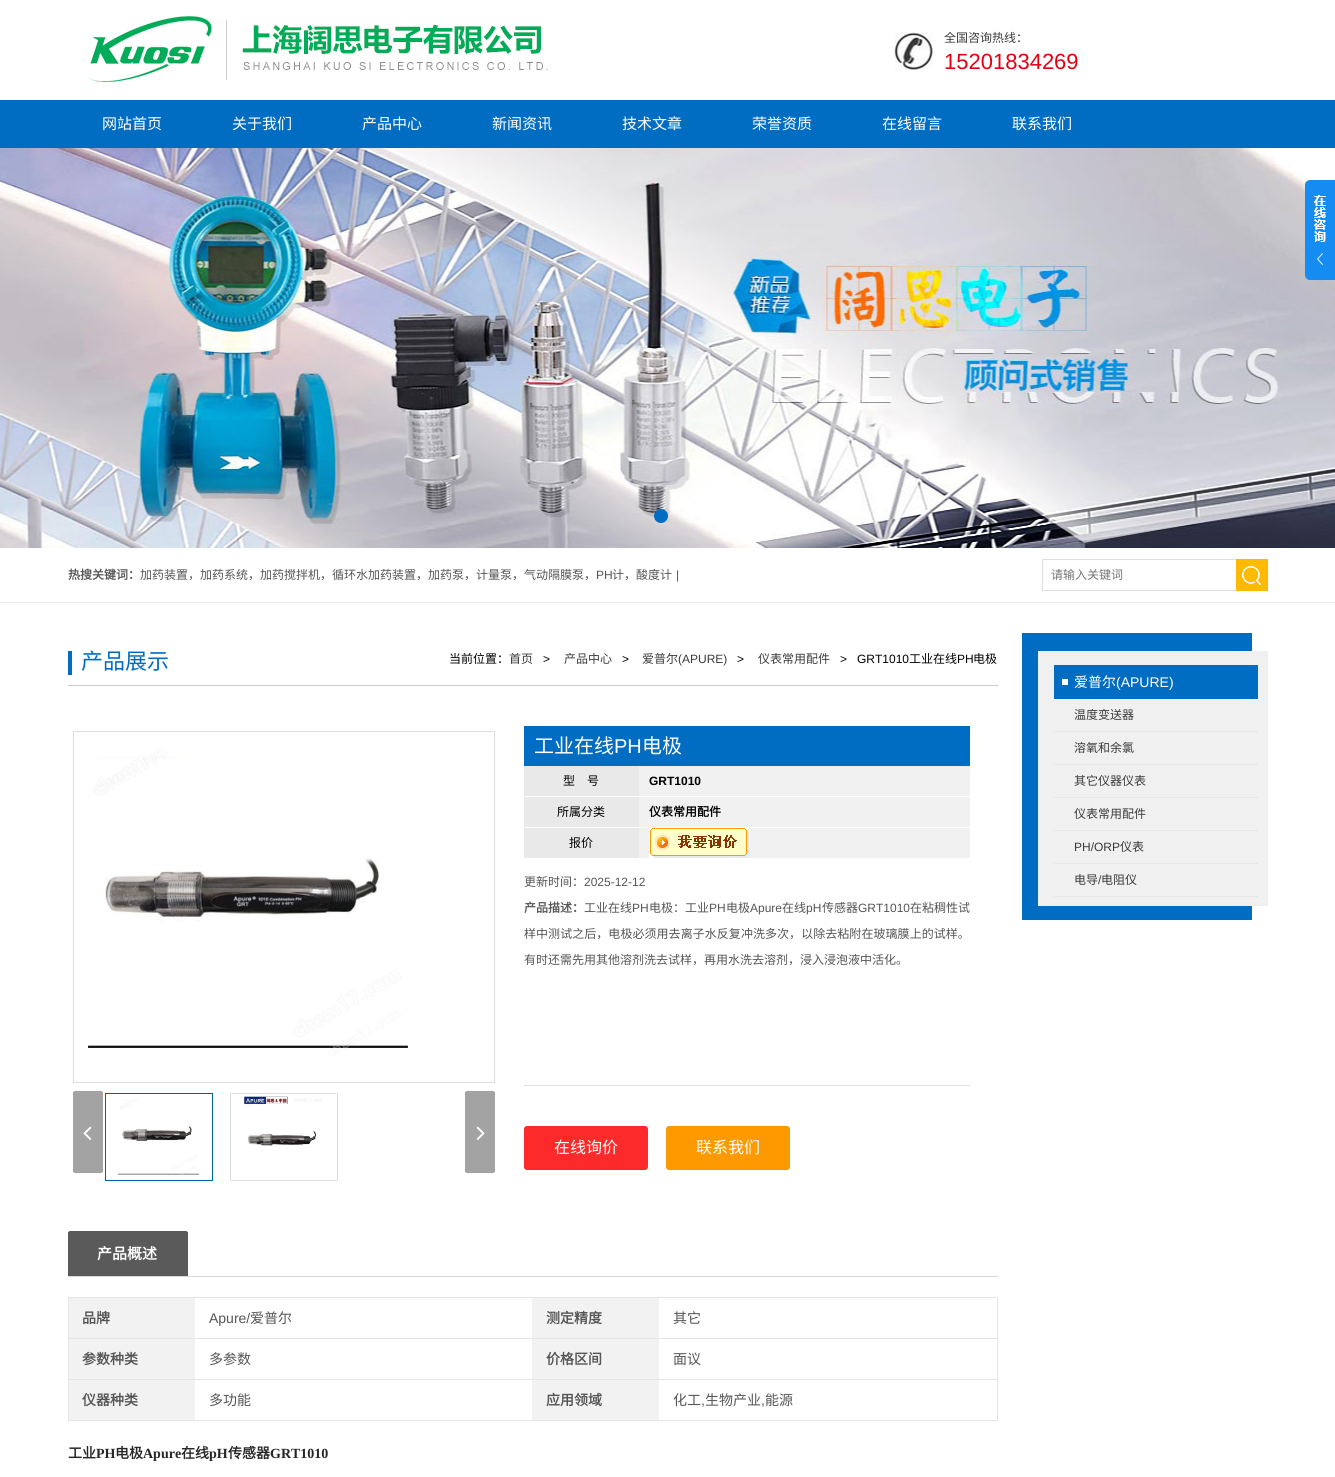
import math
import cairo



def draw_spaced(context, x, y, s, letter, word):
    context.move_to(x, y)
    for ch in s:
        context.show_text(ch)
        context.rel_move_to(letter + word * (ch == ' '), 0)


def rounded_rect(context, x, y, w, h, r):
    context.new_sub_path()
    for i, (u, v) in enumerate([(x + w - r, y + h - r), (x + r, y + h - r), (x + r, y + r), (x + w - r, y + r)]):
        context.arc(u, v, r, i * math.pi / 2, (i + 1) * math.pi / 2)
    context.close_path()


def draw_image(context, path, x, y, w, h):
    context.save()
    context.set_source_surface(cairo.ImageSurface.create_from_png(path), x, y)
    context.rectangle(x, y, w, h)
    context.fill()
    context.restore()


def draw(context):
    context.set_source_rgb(1, 1, 1)
    context.paint()
    draw_image(context, "images/1.png", 87, 16, 461, 66)
    draw_image(context, "images/2.png", 894, 32, 39, 38)
    context.set_source_rgb(0, 109 / 255, 194 / 255)
    context.rectangle(0, 100, 1335, 48)
    context.fill()
    draw_image(context, "images/3.png", 0, 148, 1335, 400)
    context.arc(661, 516, 7, 0, 2 * math.pi)
    context.fill()
    context.set_source_rgba(1, 1, 1, 0.5)
    context.arc(690, 516, 7, 0, 2 * math.pi)
    context.fill()
    draw_image(context, "images/4.png", 1305, 180, 30, 100)
    context.set_source_rgb(238 / 255, 238 / 255, 238 / 255)
    context.rectangle(0, 602, 1335, 1)
    context.fill()
    context.rectangle(1042.5, 559.5, 194, 31)
    context.set_source_rgb(222 / 255, 222 / 255, 222 / 255)
    context.set_line_width(1)
    context.stroke()
    draw_image(context, "images/5.png", 1236, 559, 32, 32)
    context.set_source_rgb(204 / 255, 204 / 255, 204 / 255)
    context.rectangle(68, 685, 930, 1)
    context.fill()
    context.set_source_rgb(0, 109 / 255, 194 / 255)
    context.rectangle(68, 651, 4, 24)
    context.fill()
    context.rectangle(73.5, 731.5, 421, 351)
    context.set_source_rgb(221 / 255, 221 / 255, 221 / 255)
    context.stroke()
    draw_image(context, "images/6.png", 88, 747, 320, 309)
    draw_image(context, "images/7.png", 73, 1091, 30, 82)
    draw_image(context, "images/8.png", 465, 1091, 30, 82)
    context.rectangle(105.5, 1093.5, 107, 87)
    context.set_source_rgb(0, 97 / 255, 165 / 255)
    context.stroke()
    draw_image(context, "images/9.png", 118, 1099, 81, 76)
    context.rectangle(230.5, 1093.5, 107, 87)
    context.set_source_rgb(222 / 255, 222 / 255, 222 / 255)
    context.stroke()
    draw_image(context, "images/10.png", 243, 1096, 80, 71)
    context.set_source_rgb(0, 109 / 255, 194 / 255)
    context.rectangle(524, 726, 446, 40)
    context.fill()
    context.set_source_rgb(241 / 255, 241 / 255, 241 / 255)
    context.rectangle(639, 766, 331, 92)
    context.fill()
    context.set_source_rgb(1, 1, 1)
    context.rectangle(639, 796, 331, 1)
    context.fill()
    context.set_source_rgb(233 / 255, 233 / 255, 234 / 255)
    context.rectangle(524, 766, 115, 30)
    context.fill()
    context.set_source_rgb(1, 1, 1)
    context.rectangle(639, 827, 331, 1)
    context.fill()
    context.set_source_rgb(233 / 255, 233 / 255, 234 / 255)
    context.rectangle(524, 797, 115, 30)
    context.fill()
    context.rectangle(524, 828, 115, 30)
    context.fill()
    draw_image(context, "images/11.png", 649, 828, 100, 30)
    context.set_source_rgb(223 / 255, 223 / 255, 223 / 255)
    context.rectangle(524, 1085, 446, 1)
    context.fill()
    context.set_source_rgb(252 / 255, 42 / 255, 42 / 255)
    rounded_rect(context, 524, 1126, 124, 44, 3)
    context.fill()
    context.set_source_rgb(1, 153 / 255, 0)
    rounded_rect(context, 666, 1126, 124, 44, 3)
    context.fill()
    context.set_source_rgb(217 / 255, 217 / 255, 217 / 255)
    context.rectangle(68, 1276, 930, 1)
    context.fill()
    context.set_source_rgb(90 / 255, 90 / 255, 90 / 255)
    context.new_path()
    context.move_to(70, 1231)
    context.line_to(186, 1231)
    context.curve_to(187, 1231, 188, 1232, 188, 1233)
    context.line_to(188, 1276)
    context.line_to(68, 1276)
    context.line_to(68, 1233)
    context.curve_to(68, 1232, 69, 1231, 70, 1231)
    context.close_path()
    context.fill()
    context.set_source_rgb(230 / 255, 229 / 255, 229 / 255)
    context.rectangle(68, 1297, 930, 1)
    context.fill()
    context.rectangle(997, 1297, 1, 124)
    context.fill()
    context.rectangle(68, 1297, 1, 124)
    context.fill()
    context.set_source_rgb(242 / 255, 242 / 255, 242 / 255)
    context.rectangle(69, 1298, 126, 40)
    context.fill()
    context.rectangle(532, 1298, 127, 40)
    context.fill()
    context.set_source_rgb(230 / 255, 229 / 255, 229 / 255)
    context.rectangle(68, 1338, 930, 1)
    context.fill()
    context.set_source_rgb(242 / 255, 242 / 255, 242 / 255)
    context.rectangle(69, 1339, 126, 40)
    context.fill()
    context.rectangle(532, 1339, 127, 40)
    context.fill()
    context.set_source_rgb(230 / 255, 229 / 255, 229 / 255)
    context.rectangle(68, 1379, 930, 1)
    context.fill()
    context.set_source_rgb(242 / 255, 242 / 255, 242 / 255)
    context.rectangle(69, 1380, 126, 40)
    context.fill()
    context.rectangle(532, 1380, 127, 40)
    context.fill()
    context.set_source_rgb(230 / 255, 229 / 255, 229 / 255)
    context.rectangle(68, 1420, 930, 1)
    context.fill()
    draw_image(context, "images/12.png", 1022, 633, 246, 287)
    draw_image(context, "images/13.png", 1038, 633, 230, 24)
    context.set_source_rgb(0, 109 / 255, 194 / 255)
    context.rectangle(1054, 665, 204, 34)
    context.fill()
    context.set_source_rgb(1, 1, 1)
    context.rectangle(1062, 679, 6, 6)
    context.fill()
    context.new_path()
    context.move_to(1054, 731.5)
    context.line_to(1258, 731.5)
    context.set_source_rgb(222 / 255, 222 / 255, 222 / 255)
    context.set_dash([1, 1])
    context.stroke()
    context.new_path()
    context.move_to(1054, 764.5)
    context.line_to(1258, 764.5)
    context.stroke()
    context.new_path()
    context.move_to(1054, 797.5)
    context.line_to(1258, 797.5)
    context.stroke()
    context.new_path()
    context.move_to(1054, 830.5)
    context.line_to(1258, 830.5)
    context.stroke()
    context.new_path()
    context.move_to(1054, 863.5)
    context.line_to(1258, 863.5)
    context.stroke()
    context.new_path()
    context.move_to(1054, 896.5)
    context.line_to(1258, 896.5)
    context.stroke()
    draw_image(context, "images/14.png", 1038, 905, 230, 15)
    context.select_font_face("Noto Sans CJK SC")
    context.set_font_size(12)
    context.set_source_rgb(58 / 255, 58 / 255, 58 / 255)
    context.move_to(944, 42)
    context.show_text("全国咨询热线：")
    context.select_font_face("Liberation Sans")
    context.set_font_size(22)
    context.set_source_rgb(226 / 255, 0, 19 / 255)
    context.move_to(944, 69)
    context.show_text("15201834269")
    context.select_font_face("Noto Sans CJK SC")
    context.set_font_size(15)
    context.set_source_rgb(1, 1, 1)
    context.move_to(102, 129)
    context.show_text("网站首页")
    context.move_to(232, 129)
    context.show_text("关于我们")
    context.move_to(362, 129)
    context.show_text("产品中心")
    context.move_to(492, 129)
    context.show_text("新闻资讯")
    context.move_to(622, 129)
    context.show_text("技术文章")
    context.move_to(752, 129)
    context.show_text("荣誉资质")
    context.move_to(882, 129)
    context.show_text("在线留言")
    context.move_to(1012, 129)
    context.show_text("联系我们")
    context.select_font_face("Noto Sans CJK SC", cairo.FontSlant.NORMAL, cairo.FontWeight.BOLD)
    context.set_font_size(12)
    context.set_source_rgb(85 / 255, 85 / 255, 85 / 255)
    context.move_to(68, 579)
    context.show_text("热搜关键词：")
    context.select_font_face("Noto Sans CJK SC")
    context.move_to(140, 579)
    context.show_text("加药装置，加药系统，加药搅拌机，循环水加药装置，加药泵，计量泵，气动隔膜泵，")
    context.select_font_face("Liberation Sans")
    context.move_to(596, 579)
    context.show_text("PH")
    context.select_font_face("Noto Sans CJK SC")
    context.move_to(612, 579)
    context.show_text("计，酸度计")
    context.select_font_face("Liberation Sans")
    context.move_to(676, 579)
    context.show_text("|")
    context.select_font_face("Noto Sans CJK SC")
    context.set_source_rgb(117 / 255, 117 / 255, 117 / 255)
    context.move_to(1051, 579)
    context.show_text("请输入关键词")
    context.set_font_size(22)
    context.set_source_rgb(0, 109 / 255, 194 / 255)
    context.move_to(81, 669)
    context.show_text("产品展示")
    context.set_font_size(12)
    context.set_source_rgb(0, 0, 0)
    context.move_to(449, 663)
    context.show_text("当前位置：")
    context.set_source_rgb(58 / 255, 58 / 255, 58 / 255)
    context.move_to(509, 663)
    context.show_text("首页")
    context.select_font_face("Liberation Sans")
    context.set_source_rgb(0, 0, 0)
    context.move_to(543, 663)
    context.show_text(">")
    context.select_font_face("Noto Sans CJK SC")
    context.set_source_rgb(58 / 255, 58 / 255, 58 / 255)
    context.move_to(564, 663)
    context.show_text("产品中心")
    context.select_font_face("Liberation Sans")
    context.set_source_rgb(0, 0, 0)
    context.move_to(622, 663)
    context.show_text(">")
    context.select_font_face("Noto Sans CJK SC")
    context.set_source_rgb(58 / 255, 58 / 255, 58 / 255)
    context.move_to(642, 663)
    context.show_text("爱普尔")
    context.select_font_face("Liberation Sans")
    context.move_to(678, 663)
    context.show_text("(APURE)")
    context.set_source_rgb(0, 0, 0)
    context.move_to(737, 663)
    context.show_text(">")
    context.select_font_face("Noto Sans CJK SC")
    context.set_source_rgb(58 / 255, 58 / 255, 58 / 255)
    context.move_to(758, 663)
    context.show_text("仪表常用配件")
    context.select_font_face("Liberation Sans")
    context.set_source_rgb(0, 0, 0)
    context.move_to(840, 663)
    context.show_text(">   GRT1010")
    context.select_font_face("Noto Sans CJK SC")
    context.move_to(909, 663)
    context.show_text("工业在线")
    context.select_font_face("Liberation Sans")
    context.move_to(957, 663)
    context.show_text("PH")
    context.select_font_face("Noto Sans CJK SC")
    context.move_to(973, 663)
    context.show_text("电极")
    context.set_font_size(20)
    context.set_source_rgb(1, 1, 1)
    context.move_to(534, 753)
    context.show_text("工业在线")
    context.select_font_face("Liberation Sans")
    context.move_to(614, 753)
    context.show_text("PH")
    context.select_font_face("Noto Sans CJK SC")
    context.move_to(642, 753)
    context.show_text("电极")
    context.set_font_size(12)
    context.set_source_rgb(0, 0, 0)
    context.move_to(563, 785)
    context.show_text("型　号")
    context.select_font_face("Liberation Sans", cairo.FontSlant.NORMAL, cairo.FontWeight.BOLD)
    context.move_to(649, 785)
    context.show_text("GRT1010")
    context.select_font_face("Noto Sans CJK SC")
    context.move_to(557, 816)
    context.show_text("所属分类")
    context.select_font_face("Noto Sans CJK SC", cairo.FontSlant.NORMAL, cairo.FontWeight.BOLD)
    context.move_to(649, 816)
    context.show_text("仪表常用配件")
    context.select_font_face("Noto Sans CJK SC")
    context.move_to(569, 847)
    context.show_text("报价")
    context.set_source_rgb(85 / 255, 85 / 255, 85 / 255)
    context.move_to(524, 886)
    context.show_text("更新时间：")
    context.select_font_face("Liberation Sans")
    context.move_to(584, 886)
    context.show_text("2025-12-12")
    context.select_font_face("Noto Sans CJK SC", cairo.FontSlant.NORMAL, cairo.FontWeight.BOLD)
    context.move_to(524, 912)
    context.show_text("产品描述：")
    context.select_font_face("Noto Sans CJK SC")
    context.move_to(584, 912)
    context.show_text("工业在线")
    context.select_font_face("Liberation Sans")
    context.move_to(632, 912)
    context.show_text("PH")
    context.select_font_face("Noto Sans CJK SC")
    context.move_to(649, 912)
    context.show_text("电极：工业")
    context.select_font_face("Liberation Sans")
    context.move_to(709, 912)
    context.show_text("PH")
    context.select_font_face("Noto Sans CJK SC")
    context.move_to(726, 912)
    context.show_text("电极")
    context.select_font_face("Liberation Sans")
    context.move_to(750, 912)
    context.show_text("Apure")
    context.select_font_face("Noto Sans CJK SC")
    context.move_to(782, 912)
    context.show_text("在线")
    context.select_font_face("Liberation Sans")
    context.move_to(806, 912)
    context.show_text("pH")
    context.select_font_face("Noto Sans CJK SC")
    context.move_to(822, 912)
    context.show_text("传感器")
    context.select_font_face("Liberation Sans")
    context.move_to(858, 912)
    context.show_text("GRT1010")
    context.select_font_face("Noto Sans CJK SC")
    context.move_to(910, 912)
    context.show_text("在粘稠性试")
    draw_spaced(context, 524, 938, "样中测试之后，电极必须用去离子水反复冲洗多次，以除去粘附在玻璃膜上的试样。", 0.05, 0)
    context.move_to(524, 964)
    context.show_text("有时还需先用其他溶剂洗去试样，再用水洗去溶剂，浸入浸泡液中活化。")
    context.set_font_size(16)
    context.set_source_rgb(1, 1, 1)
    context.move_to(554, 1153)
    context.show_text("在线询价")
    context.move_to(696, 1153)
    context.show_text("联系我们")
    context.select_font_face("Noto Sans CJK SC", cairo.FontSlant.NORMAL, cairo.FontWeight.BOLD)
    context.set_font_size(15)
    context.move_to(97, 1259)
    context.show_text("产品概述")
    context.set_font_size(14)
    context.set_source_rgb(85 / 255, 85 / 255, 85 / 255)
    context.move_to(82, 1323)
    context.show_text("品牌")
    context.select_font_face("Liberation Sans")
    context.move_to(209, 1323)
    context.show_text("Apure/")
    context.select_font_face("Noto Sans CJK SC")
    context.move_to(250, 1323)
    context.show_text("爱普尔")
    context.select_font_face("Noto Sans CJK SC", cairo.FontSlant.NORMAL, cairo.FontWeight.BOLD)
    context.move_to(546, 1323)
    context.show_text("测定精度")
    context.select_font_face("Noto Sans CJK SC")
    context.move_to(673, 1323)
    context.show_text("其它")
    context.select_font_face("Noto Sans CJK SC", cairo.FontSlant.NORMAL, cairo.FontWeight.BOLD)
    context.move_to(82, 1364)
    context.show_text("参数种类")
    context.select_font_face("Noto Sans CJK SC")
    context.move_to(209, 1364)
    context.show_text("多参数")
    context.select_font_face("Noto Sans CJK SC", cairo.FontSlant.NORMAL, cairo.FontWeight.BOLD)
    context.move_to(546, 1364)
    context.show_text("价格区间")
    context.select_font_face("Noto Sans CJK SC")
    context.move_to(673, 1364)
    context.show_text("面议")
    context.select_font_face("Noto Sans CJK SC", cairo.FontSlant.NORMAL, cairo.FontWeight.BOLD)
    context.move_to(82, 1405)
    context.show_text("仪器种类")
    context.select_font_face("Noto Sans CJK SC")
    context.move_to(209, 1405)
    context.show_text("多功能")
    context.select_font_face("Noto Sans CJK SC", cairo.FontSlant.NORMAL, cairo.FontWeight.BOLD)
    context.move_to(546, 1405)
    context.show_text("应用领域")
    context.select_font_face("Noto Sans CJK SC")
    context.move_to(673, 1405)
    context.show_text("化工")
    context.select_font_face("Liberation Sans")
    context.move_to(701, 1405)
    context.show_text(",")
    context.select_font_face("Noto Sans CJK SC")
    context.move_to(705, 1405)
    context.show_text("生物产业")
    context.select_font_face("Liberation Sans")
    context.move_to(761, 1405)
    context.show_text(",")
    context.select_font_face("Noto Sans CJK SC")
    context.move_to(765, 1405)
    context.show_text("能源")
    context.select_font_face("Noto Sans CJK SC", cairo.FontSlant.NORMAL, cairo.FontWeight.BOLD)
    context.set_source_rgb(38 / 255, 38 / 255, 38 / 255)
    context.move_to(68, 1458)
    context.show_text("工业")
    context.select_font_face("Liberation Serif", cairo.FontSlant.NORMAL, cairo.FontWeight.BOLD)
    context.move_to(96, 1458)
    context.show_text("PH")
    context.select_font_face("Noto Sans CJK SC", cairo.FontSlant.NORMAL, cairo.FontWeight.BOLD)
    context.move_to(115, 1458)
    context.show_text("电极")
    context.select_font_face("Liberation Serif", cairo.FontSlant.NORMAL, cairo.FontWeight.BOLD)
    context.move_to(143, 1458)
    context.show_text("Apure")
    context.select_font_face("Noto Sans CJK SC", cairo.FontSlant.NORMAL, cairo.FontWeight.BOLD)
    context.move_to(181, 1458)
    context.show_text("在线")
    context.select_font_face("Liberation Serif", cairo.FontSlant.NORMAL, cairo.FontWeight.BOLD)
    context.move_to(209, 1458)
    context.show_text("pH")
    context.select_font_face("Noto Sans CJK SC", cairo.FontSlant.NORMAL, cairo.FontWeight.BOLD)
    context.move_to(228, 1458)
    context.show_text("传感器")
    context.select_font_face("Liberation Serif", cairo.FontSlant.NORMAL, cairo.FontWeight.BOLD)
    context.move_to(270, 1458)
    context.show_text("GRT1010")
    context.select_font_face("Noto Sans CJK SC")
    context.set_source_rgb(1, 1, 1)
    context.move_to(1074, 687)
    context.show_text("爱普尔")
    context.select_font_face("Liberation Sans")
    context.move_to(1116, 687)
    context.show_text("(APURE)")
    context.select_font_face("Noto Sans CJK SC")
    context.set_font_size(12)
    context.set_source_rgb(58 / 255, 58 / 255, 58 / 255)
    context.move_to(1074, 719)
    context.show_text("温度变送器")
    context.move_to(1074, 752)
    context.show_text("溶氧和余氯")
    context.move_to(1074, 785)
    context.show_text("其它仪器仪表")
    context.move_to(1074, 818)
    context.show_text("仪表常用配件")
    context.select_font_face("Liberation Sans")
    context.move_to(1074, 851)
    context.show_text("PH/ORP")
    context.select_font_face("Noto Sans CJK SC")
    context.move_to(1120, 851)
    context.show_text("仪表")
    context.move_to(1074, 884)
    context.show_text("电导")
    context.select_font_face("Liberation Sans")
    context.move_to(1098, 884)
    context.show_text("/")
    context.select_font_face("Noto Sans CJK SC")
    context.move_to(1101, 884)
    context.show_text("电阻仪")


surface = cairo.ImageSurface(cairo.Format.RGB24, 1335, 1477)
context = cairo.Context(surface)
options = cairo.FontOptions()
options.set_hint_metrics(cairo.HintMetrics.OFF)
options.set_hint_style(cairo.HintStyle.NONE)
context.set_font_options(options)
context.set_miter_limit(4)
draw(context)
surface.write_to_png("out.png")
